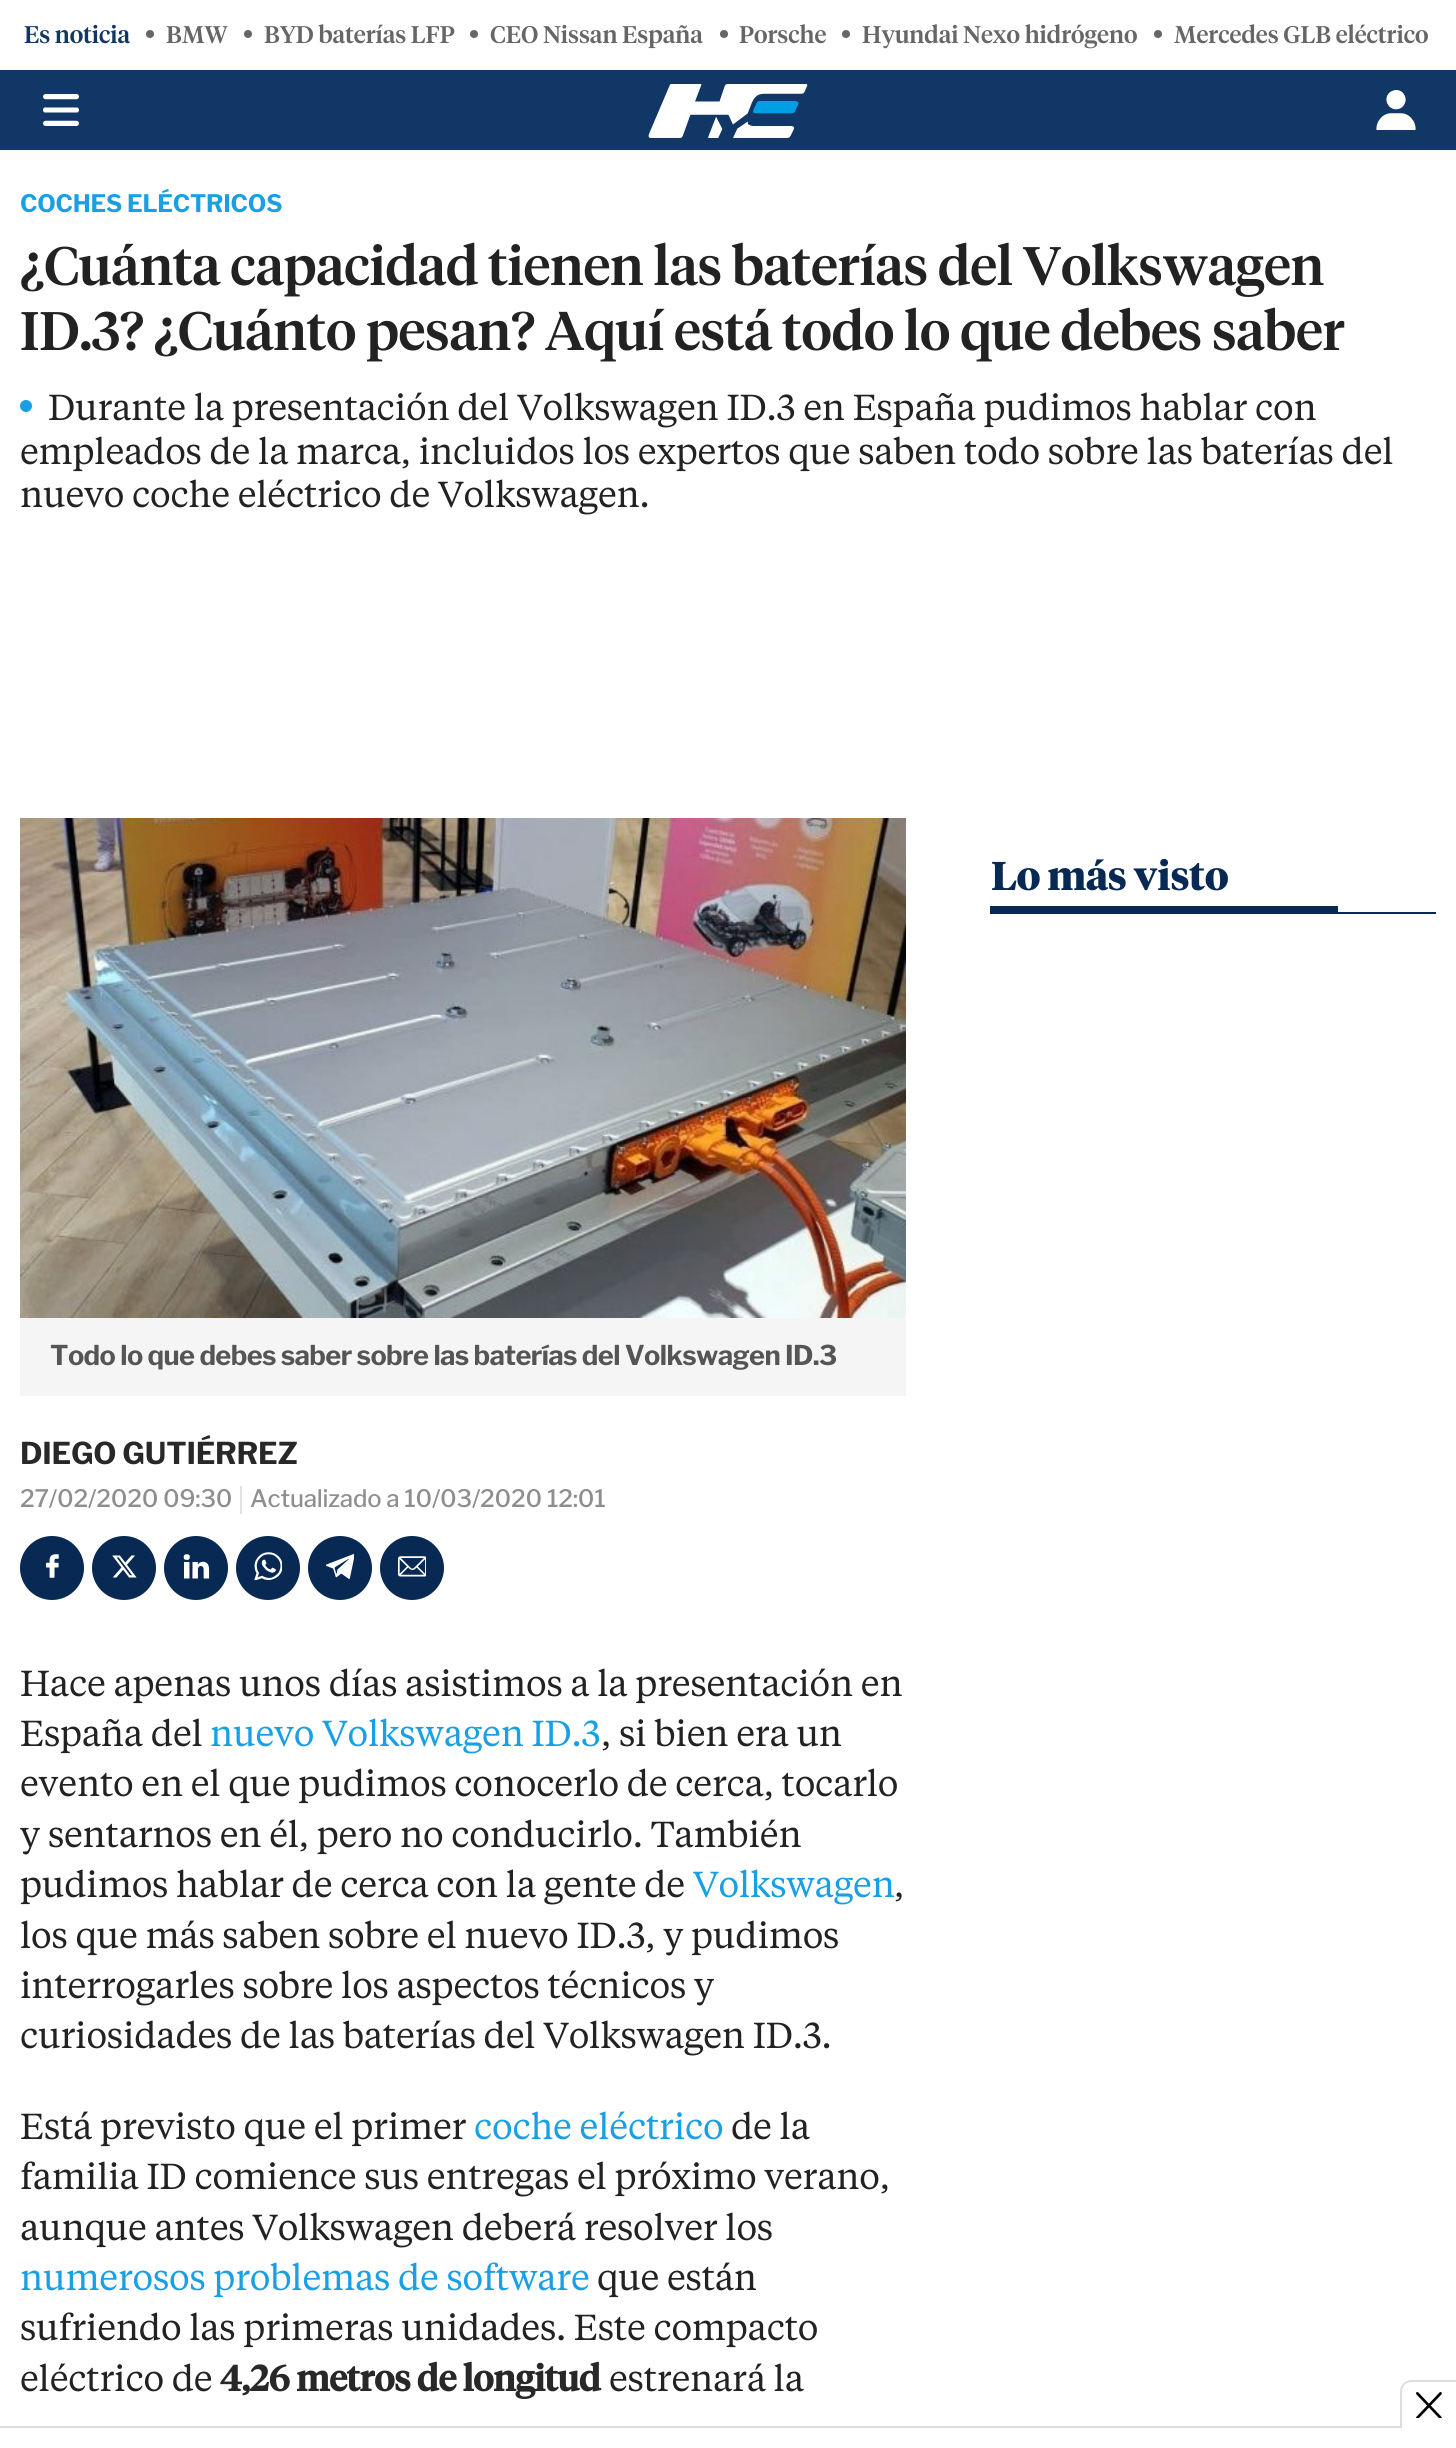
import math
import cairo



def draw_spaced(context, x, y, s, letter, word):
    context.move_to(x, y)
    for ch in s:
        context.show_text(ch)
        context.rel_move_to(letter + word * (ch == ' '), 0)


def draw_image(context, path, x, y, w, h):
    context.save()
    context.set_source_surface(cairo.ImageSurface.create_from_png(path), x, y)
    context.rectangle(x, y, w, h)
    context.fill()
    context.restore()


def draw(context):
    context.set_source_rgb(1, 1, 1)
    context.paint()
    context.set_source_rgb(102 / 255, 102 / 255, 102 / 255)
    context.arc(150, 34, 4, 0, 2 * math.pi)
    context.fill()
    context.arc(248, 34, 4, 0, 2 * math.pi)
    context.fill()
    context.arc(474, 34, 4, 0, 2 * math.pi)
    context.fill()
    context.arc(724, 34, 4, 0, 2 * math.pi)
    context.fill()
    context.arc(846, 34, 4, 0, 2 * math.pi)
    context.fill()
    context.arc(1158, 34, 4, 0, 2 * math.pi)
    context.fill()
    context.set_source_rgb(17 / 255, 55 / 255, 103 / 255)
    context.rectangle(0, 70, 1456, 80)
    context.fill()
    draw_image(context, "images/1.png", 43, 94, 36, 32)
    draw_image(context, "images/2.png", 648, 84, 160, 54)
    draw_image(context, "images/3.png", 1376, 90, 40, 40)
    context.set_source_rgb(25 / 255, 159 / 255, 227 / 255)
    context.arc(26, 406, 6, 0, 2 * math.pi)
    context.fill()
    context.set_source_rgb(8 / 255, 41 / 255, 83 / 255)
    context.rectangle(990, 912, 446, 2)
    context.fill()
    context.rectangle(990, 906, 348, 6)
    context.fill()
    draw_image(context, "images/4.png", 20, 818, 886, 500)
    context.set_source_rgb(245 / 255, 245 / 255, 245 / 255)
    context.rectangle(20, 1318, 886, 78)
    context.fill()
    context.set_source_rgb(227 / 255, 227 / 255, 227 / 255)
    context.rectangle(240, 1486, 2, 28)
    context.fill()
    context.set_source_rgb(8 / 255, 41 / 255, 83 / 255)
    context.arc(52, 1568, 32, 0, 2 * math.pi)
    context.fill()
    draw_image(context, "images/5.png", 46, 1554, 13, 24)
    context.arc(124, 1568, 32, 0, 2 * math.pi)
    context.fill()
    draw_image(context, "images/6.png", 112, 1555, 25, 23)
    context.arc(196, 1568, 32, 0, 2 * math.pi)
    context.fill()
    draw_image(context, "images/7.png", 183, 1554, 27, 25)
    context.arc(268, 1568, 32, 0, 2 * math.pi)
    context.fill()
    draw_image(context, "images/8.png", 254, 1552, 28, 28)
    context.arc(340, 1568, 32, 0, 2 * math.pi)
    context.fill()
    draw_image(context, "images/9.png", 326, 1553, 28, 26)
    context.arc(412, 1568, 32, 0, 2 * math.pi)
    context.fill()
    draw_image(context, "images/10.png", 398, 1556, 28, 21)
    context.set_source_rgb(221 / 255, 221 / 255, 221 / 255)
    context.rectangle(0, 2426, 1400, 2)
    context.fill()
    draw_image(context, "images/11.png", 1416, 2392, 26, 26)
    context.set_fill_rule(cairo.FillRule.EVEN_ODD)
    context.new_path()
    context.move_to(1412, 2380)
    context.line_to(1456, 2380)
    context.line_to(1456, 2428)
    context.line_to(1400, 2428)
    context.line_to(1400, 2392)
    context.curve_to(1400, 2385, 1405, 2380, 1412, 2380)
    context.close_path()
    context.move_to(1412, 2382)
    context.line_to(1456, 2382)
    context.line_to(1456, 2428)
    context.line_to(1402, 2428)
    context.line_to(1402, 2392)
    context.curve_to(1402, 2386, 1406, 2382, 1412, 2382)
    context.close_path()
    context.fill()
    context.select_font_face("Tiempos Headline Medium")
    context.set_font_size(24)
    context.set_source_rgb(17 / 255, 55 / 255, 103 / 255)
    context.move_to(24, 43)
    context.show_text("Es noticia")
    context.set_source_rgb(102 / 255, 102 / 255, 102 / 255)
    context.move_to(166, 43)
    context.show_text("BMW")
    context.move_to(264, 43)
    context.show_text("BYD baterías LFP")
    context.move_to(490, 43)
    context.show_text("CEO Nissan España")
    context.move_to(739, 43)
    context.show_text("Porsche")
    context.move_to(862, 43)
    context.show_text("Hyundai Nexo hidrógeno")
    context.move_to(1174, 43)
    context.show_text("Mercedes GLB eléctrico")
    context.select_font_face("Libre Franklin", cairo.FontSlant.NORMAL, cairo.FontWeight.BOLD)
    context.set_source_rgb(25 / 255, 159 / 255, 227 / 255)
    draw_spaced(context, 20, 212, "COCHES ELÉCTRICOS", -0.2, 0)
    context.select_font_face("Tiempos Headline Medium")
    context.set_font_size(54)
    context.set_source_rgb(34 / 255, 34 / 255, 34 / 255)
    draw_spaced(context, 20, 285, "¿Cuánta capacidad tienen las baterías del Volkswagen", -0.2, 0)
    draw_spaced(context, 20, 350, "ID.3? ¿Cuánto pesan? Aquí está todo lo que debes saber", -0.2, 0)
    context.select_font_face("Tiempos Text")
    context.set_font_size(36)
    draw_spaced(context, 48, 420, "Durante la presentación del Volkswagen ID.3 en España pudimos hablar con", -0.2, 0)
    draw_spaced(context, 20, 464, "empleados de la marca, incluidos los expertos que saben todo sobre las baterías del", -0.2, 0)
    draw_spaced(context, 20, 507, "nuevo coche eléctrico de Volkswagen.", -0.2, 0)
    context.select_font_face("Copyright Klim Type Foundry", cairo.FontSlant.NORMAL, cairo.FontWeight.BOLD)
    context.set_font_size(40)
    context.set_source_rgb(8 / 255, 41 / 255, 83 / 255)
    draw_spaced(context, 991, 890, "Lo más visto", -0.2, 0)
    context.select_font_face("Libre Franklin", cairo.FontSlant.NORMAL, cairo.FontWeight.BOLD)
    context.set_font_size(27.2)
    context.set_source_rgb(85 / 255, 85 / 255, 85 / 255)
    draw_spaced(context, 50, 1365, "Todo lo que debes saber sobre las baterías del Volkswagen ID.3", -0.6, 0)
    context.set_font_size(30)
    context.set_source_rgb(40 / 255, 40 / 255, 40 / 255)
    draw_spaced(context, 20, 1464, "DIEGO GUTIÉRREZ", -0.2, 0)
    context.select_font_face("Libre Franklin Medium")
    context.set_font_size(24)
    context.set_source_rgb(142 / 255, 142 / 255, 142 / 255)
    draw_spaced(context, 20, 1507, "27/02/2020 09:30", -0.2, 0)
    draw_spaced(context, 250, 1507, "Actualizado a 10/03/2020 12:01", -0.2, 0)
    context.select_font_face("Tiempos Text")
    context.set_font_size(36)
    context.set_source_rgb(34 / 255, 34 / 255, 34 / 255)
    draw_spaced(context, 20, 1696, "Hace apenas unos días asistimos a la presentación en", -0.2, 0)
    draw_spaced(context, 20, 1746, "España del", -0.2, 0)
    context.set_source_rgb(25 / 255, 159 / 255, 227 / 255)
    draw_spaced(context, 210, 1746, "nuevo Volkswagen ID.3", -0.2, 0)
    context.set_source_rgb(34 / 255, 34 / 255, 34 / 255)
    draw_spaced(context, 601, 1746, ", si bien era un", -0.2, 0)
    draw_spaced(context, 20, 1796, "evento en el que pudimos conocerlo de cerca, tocarlo", -0.2, 0)
    draw_spaced(context, 20, 1847, "y sentarnos en él, pero no conducirlo. También", -0.2, 0)
    draw_spaced(context, 20, 1897, "pudimos hablar de cerca con la gente de", -0.2, 0)
    context.set_source_rgb(25 / 255, 159 / 255, 227 / 255)
    draw_spaced(context, 693, 1897, "Volkswagen", -0.2, 0)
    context.set_source_rgb(34 / 255, 34 / 255, 34 / 255)
    draw_spaced(context, 894, 1897, ",", -0.2, 0)
    draw_spaced(context, 20, 1948, "los que más saben sobre el nuevo ID.3, y pudimos", -0.2, 0)
    draw_spaced(context, 20, 1998, "interrogarles sobre los aspectos técnicos y", -0.2, 0)
    draw_spaced(context, 20, 2048, "curiosidades de las baterías del Volkswagen ID.3.", -0.2, 0)
    draw_spaced(context, 20, 2139, "Está previsto que el primer", -0.2, 0)
    context.set_source_rgb(25 / 255, 159 / 255, 227 / 255)
    draw_spaced(context, 474, 2139, "coche eléctrico", -0.2, 0)
    context.set_source_rgb(34 / 255, 34 / 255, 34 / 255)
    draw_spaced(context, 731, 2139, "de la", -0.2, 0)
    draw_spaced(context, 20, 2189, "familia ID comience sus entregas el próximo verano,", -0.2, 0)
    draw_spaced(context, 20, 2240, "aunque antes Volkswagen deberá resolver los", -0.2, 0)
    context.set_source_rgb(25 / 255, 159 / 255, 227 / 255)
    draw_spaced(context, 20, 2290, "numerosos problemas de software", -0.2, 0)
    context.set_source_rgb(34 / 255, 34 / 255, 34 / 255)
    draw_spaced(context, 597, 2290, "que están", -0.2, 0)
    draw_spaced(context, 20, 2340, "sufriendo las primeras unidades. Este compacto", -0.2, 0)
    draw_spaced(context, 20, 2391, "eléctrico de", -0.2, 0)
    context.select_font_face("Tiempos Headline", cairo.FontSlant.NORMAL, cairo.FontWeight.BOLD)
    context.set_source_rgb(40 / 255, 40 / 255, 40 / 255)
    draw_spaced(context, 220, 2391, "4,26 metros de longitud", -0.2, 0)
    context.select_font_face("Tiempos Text")
    context.set_source_rgb(34 / 255, 34 / 255, 34 / 255)
    draw_spaced(context, 609, 2391, "estrenará la", -0.2, 0)


surface = cairo.ImageSurface(cairo.Format.RGB24, 1456, 2448)
context = cairo.Context(surface)
options = cairo.FontOptions()
options.set_hint_metrics(cairo.HintMetrics.OFF)
options.set_hint_style(cairo.HintStyle.NONE)
context.set_font_options(options)
context.set_miter_limit(4)
draw(context)
surface.write_to_png("out.png")
